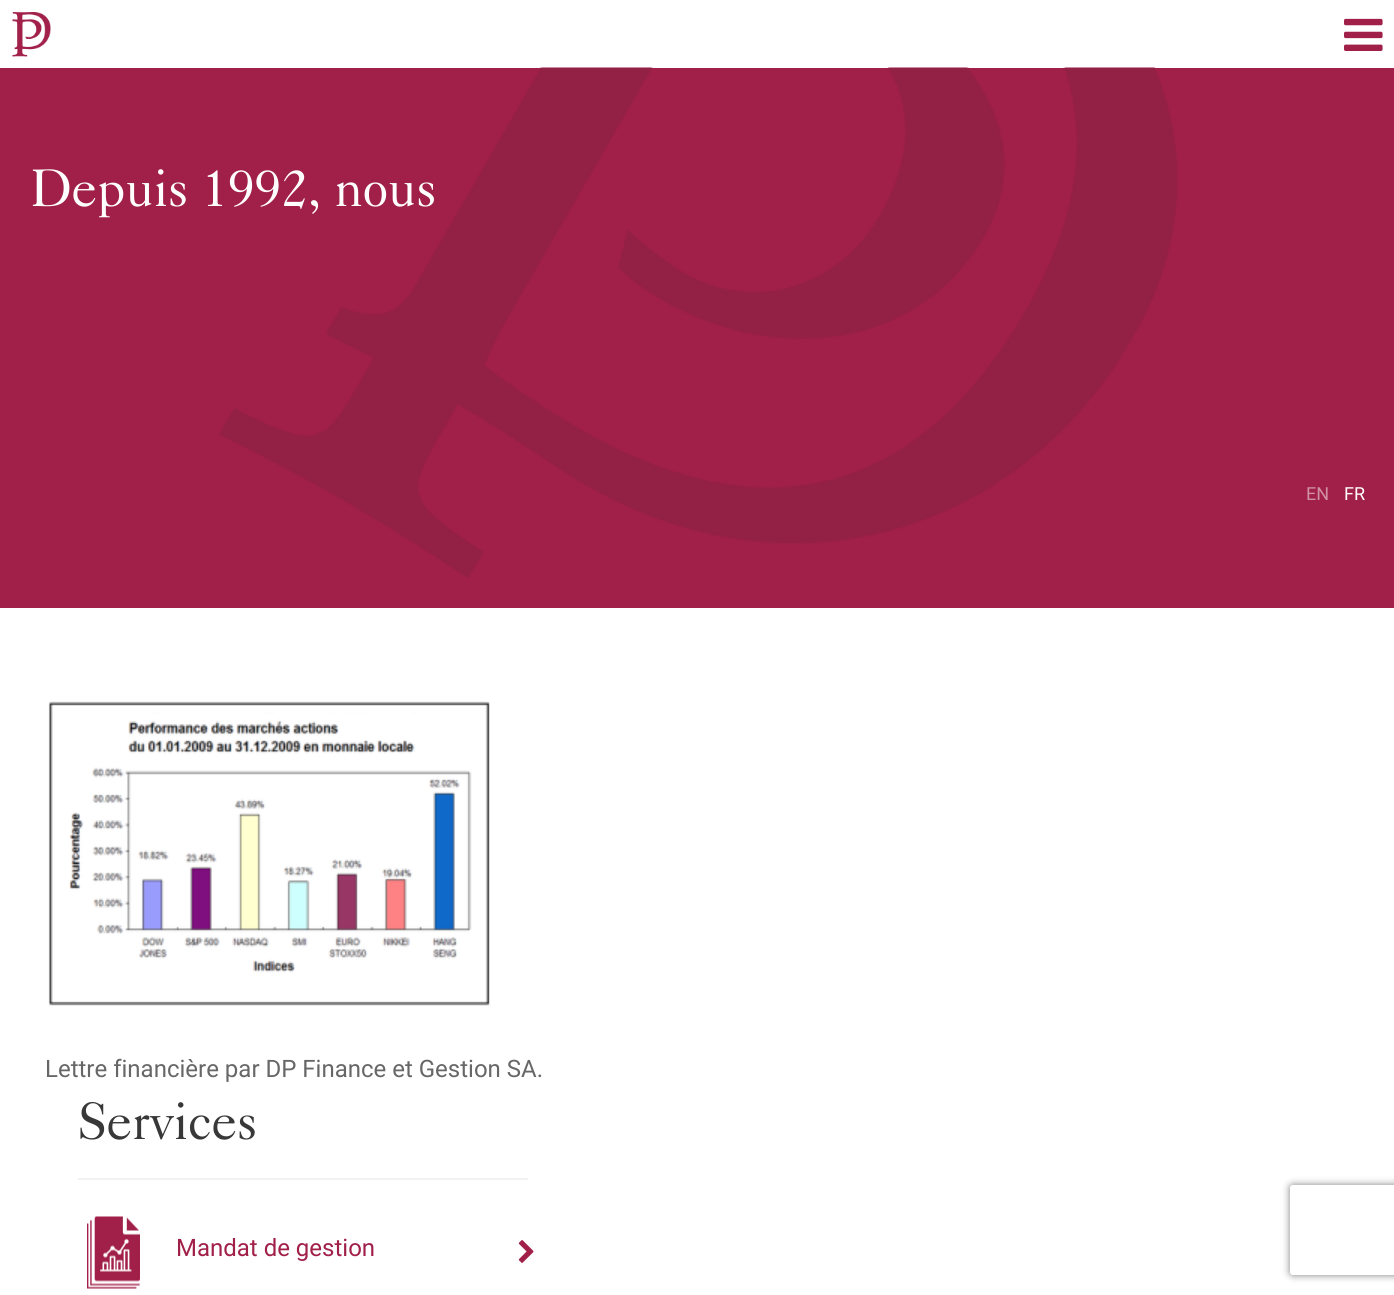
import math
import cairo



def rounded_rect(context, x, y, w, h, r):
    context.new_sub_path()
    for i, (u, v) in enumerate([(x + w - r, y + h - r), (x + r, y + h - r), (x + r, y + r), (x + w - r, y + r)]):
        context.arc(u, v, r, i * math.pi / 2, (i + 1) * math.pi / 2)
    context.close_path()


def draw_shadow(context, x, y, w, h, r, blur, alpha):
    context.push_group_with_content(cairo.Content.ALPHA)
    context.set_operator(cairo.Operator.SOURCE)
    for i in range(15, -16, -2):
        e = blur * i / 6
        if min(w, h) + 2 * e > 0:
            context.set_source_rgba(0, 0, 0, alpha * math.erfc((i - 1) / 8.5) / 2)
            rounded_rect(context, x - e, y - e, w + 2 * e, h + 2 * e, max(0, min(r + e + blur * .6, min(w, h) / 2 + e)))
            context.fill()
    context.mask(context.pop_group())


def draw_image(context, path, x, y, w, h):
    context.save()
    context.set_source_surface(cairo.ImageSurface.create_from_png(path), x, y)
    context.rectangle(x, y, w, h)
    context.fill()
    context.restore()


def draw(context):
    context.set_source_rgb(1, 1, 1)
    context.paint()
    draw_image(context, "images/1.png", 12, 12, 39, 45)
    draw_image(context, "images/2.png", 1344, 18, 39, 33)
    context.set_source_rgb(161 / 255, 32 / 255, 74 / 255)
    context.rectangle(0, 68, 1394, 540)
    context.fill()
    draw_image(context, "images/3.png", 219, 67, 959, 511)
    draw_image(context, "images/4.png", 48, 701, 442, 305)
    context.set_source_rgb(242 / 255, 242 / 255, 242 / 255)
    context.rectangle(78, 1178, 450, 2)
    context.fill()
    draw_image(context, "images/5.png", 87, 1216, 53, 73)
    draw_image(context, "images/6.png", 518, 1240, 16, 23)
    context.save()
    context.set_fill_rule(cairo.FillRule.EVEN_ODD)
    context.new_path()
    context.move_to(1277, 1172)
    context.line_to(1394, 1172)
    context.line_to(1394, 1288)
    context.line_to(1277, 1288)
    context.close_path()
    context.move_to(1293, 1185)
    context.line_to(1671, 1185)
    context.curve_to(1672.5, 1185, 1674, 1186.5, 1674, 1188)
    context.line_to(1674, 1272)
    context.curve_to(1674, 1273.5, 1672.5, 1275, 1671, 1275)
    context.line_to(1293, 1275)
    context.curve_to(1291.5, 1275, 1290, 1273.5, 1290, 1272)
    context.line_to(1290, 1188)
    context.curve_to(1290, 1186.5, 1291.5, 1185, 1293, 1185)
    context.close_path()
    context.clip()
    context.set_source_rgb(128 / 255, 128 / 255, 128 / 255)
    draw_shadow(context, 1290, 1185, 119, 90, 3, 4, 1)
    context.restore()
    context.select_font_face("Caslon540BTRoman")
    context.set_font_size(52.5)
    context.set_source_rgb(1, 1, 1)
    context.move_to(30, 206)
    context.show_text("Depuis 1992, nous")
    context.select_font_face("Roboto")
    context.set_font_size(18)
    context.set_source_rgb(208 / 255, 144 / 255, 165 / 255)
    context.move_to(1306, 500)
    context.show_text("EN")
    context.set_source_rgb(1, 1, 1)
    context.move_to(1344, 500)
    context.show_text("FR")
    context.set_font_size(24)
    context.set_source_rgb(103 / 255, 103 / 255, 103 / 255)
    context.move_to(45, 1077)
    context.show_text("Lettre financière par DP Finance et Gestion SA.")
    context.select_font_face("Caslon540BTRoman")
    context.set_font_size(52.5)
    context.set_source_rgb(56 / 255, 56 / 255, 56 / 255)
    context.move_to(78, 1139)
    context.show_text("Services")
    context.select_font_face("Roboto")
    context.set_font_size(24)
    context.set_source_rgb(161 / 255, 32 / 255, 74 / 255)
    context.move_to(176, 1256)
    context.show_text("Mandat de gestion")


surface = cairo.ImageSurface(cairo.Format.RGB24, 1394, 1295)
context = cairo.Context(surface)
options = cairo.FontOptions()
options.set_hint_metrics(cairo.HintMetrics.OFF)
options.set_hint_style(cairo.HintStyle.NONE)
context.set_font_options(options)
context.set_miter_limit(4)
draw(context)
surface.write_to_png("out.png")
